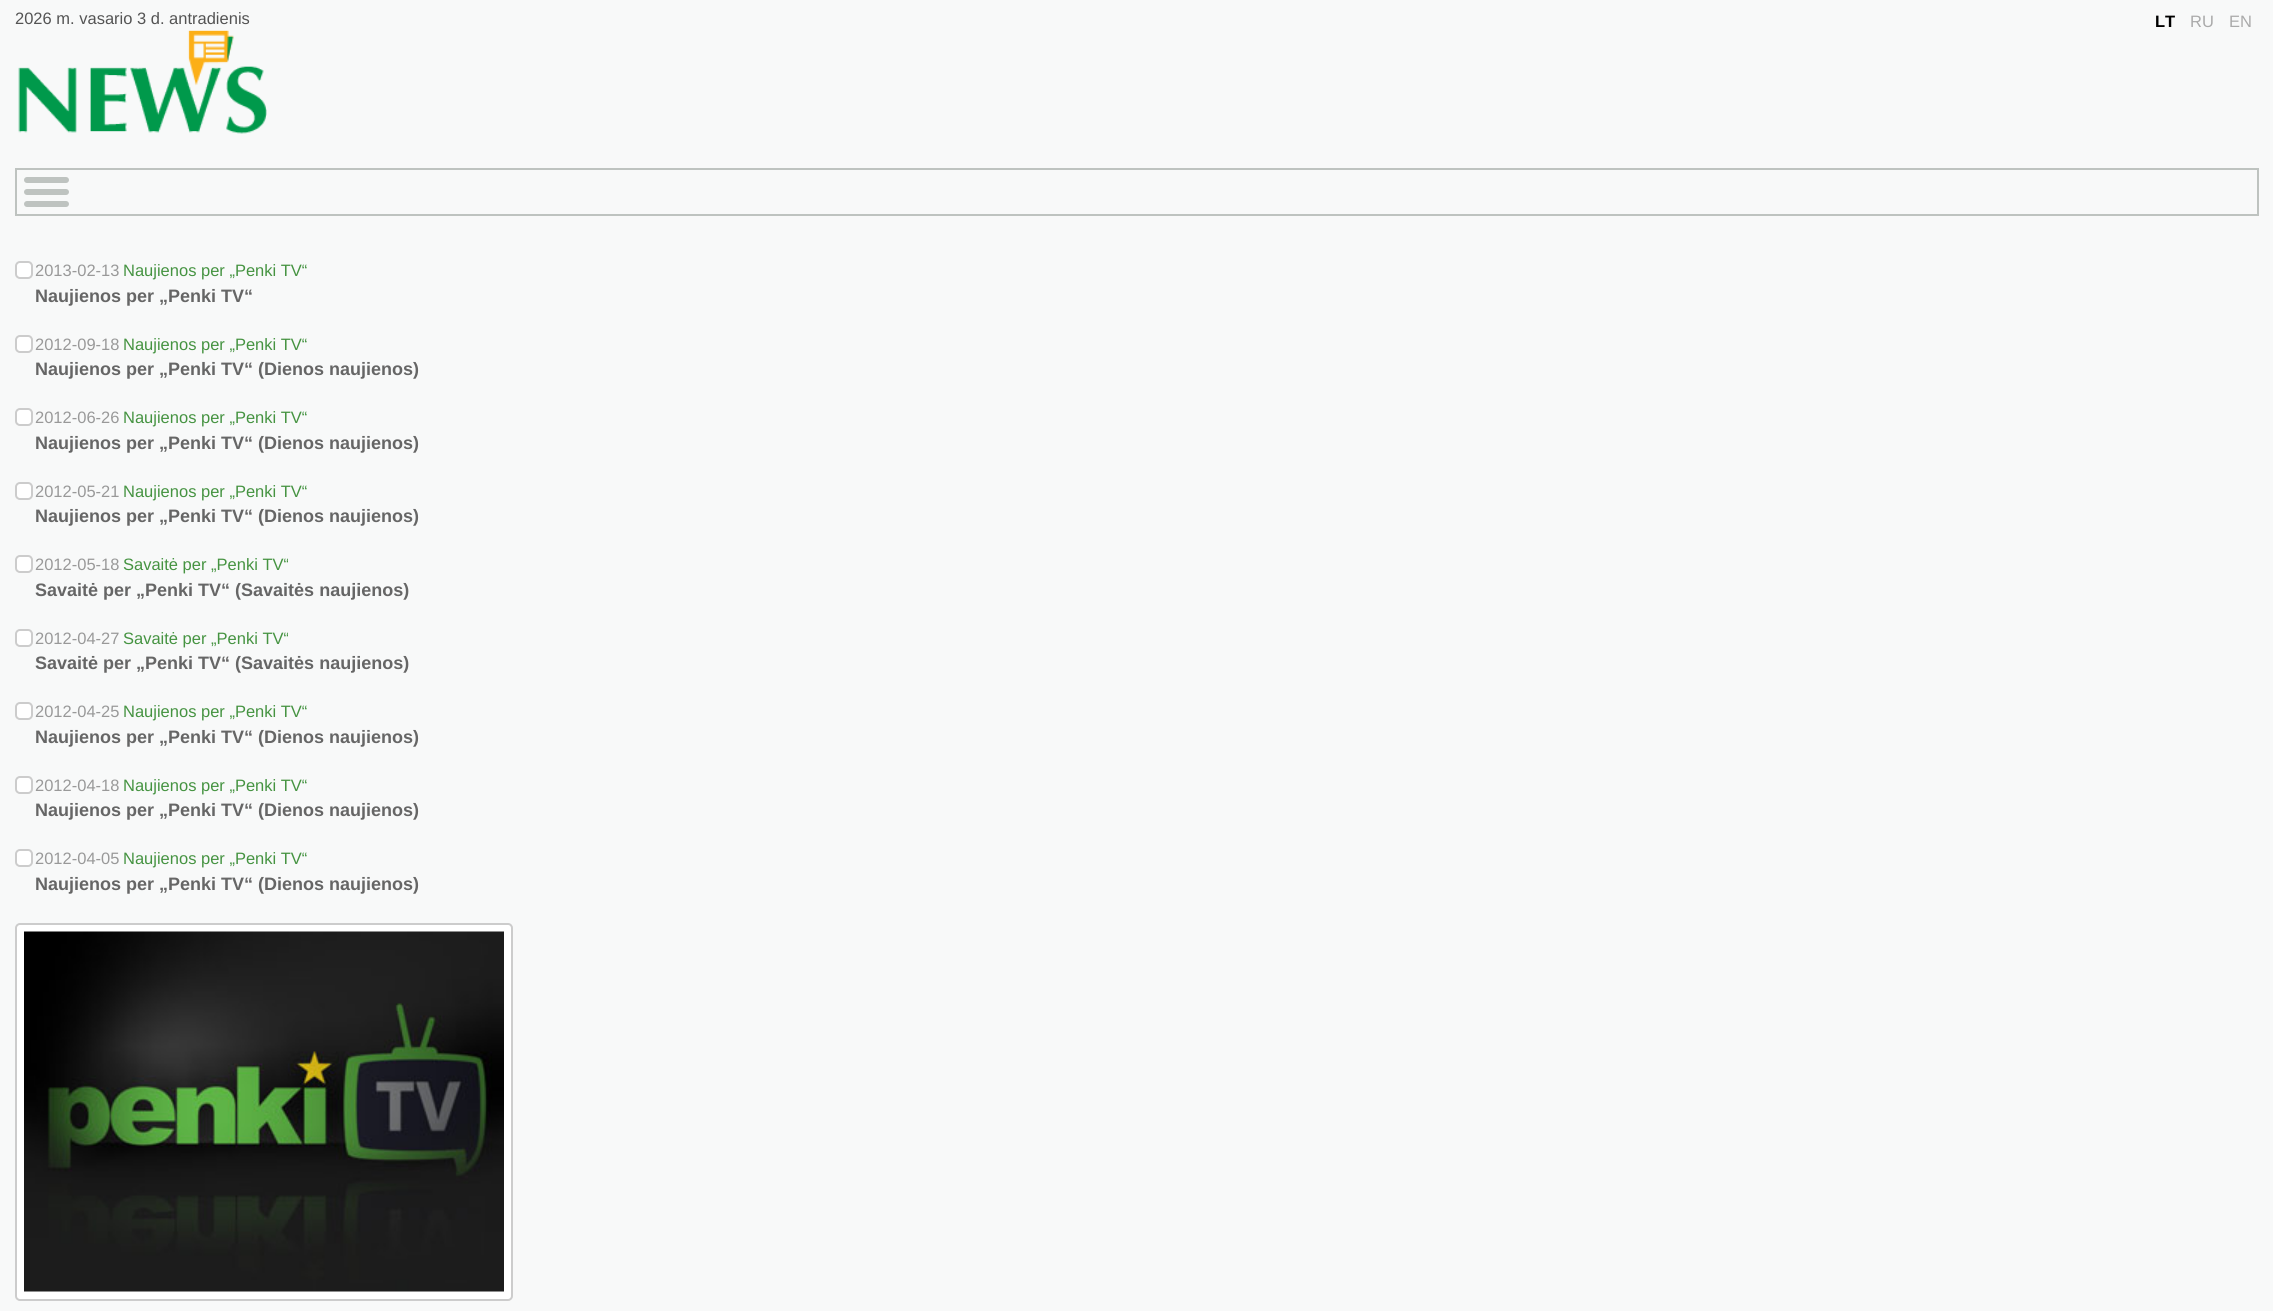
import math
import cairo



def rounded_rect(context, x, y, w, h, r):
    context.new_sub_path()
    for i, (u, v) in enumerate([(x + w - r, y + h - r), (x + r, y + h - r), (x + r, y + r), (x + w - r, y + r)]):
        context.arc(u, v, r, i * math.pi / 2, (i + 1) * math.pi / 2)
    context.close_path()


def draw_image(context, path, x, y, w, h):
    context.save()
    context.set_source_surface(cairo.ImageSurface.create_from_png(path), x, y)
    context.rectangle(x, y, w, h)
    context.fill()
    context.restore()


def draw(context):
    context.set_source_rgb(248 / 255, 249 / 255, 249 / 255)
    context.paint()
    draw_image(context, "images/1.png", 18, 30, 249, 104)
    context.rectangle(16, 169, 2242, 46)
    context.set_source_rgb(190 / 255, 195 / 255, 192 / 255)
    context.stroke()
    rounded_rect(context, 24, 189, 45, 6, 3)
    context.fill()
    rounded_rect(context, 24, 177, 45, 6, 3)
    context.fill()
    rounded_rect(context, 24, 201, 45, 6, 3)
    context.fill()
    context.set_source_rgb(1, 1, 1)
    rounded_rect(context, 16, 262, 16, 16, 4)
    context.fill_preserve()
    context.set_source_rgb(204 / 255, 204 / 255, 204 / 255)
    context.stroke()
    context.set_source_rgb(1, 1, 1)
    rounded_rect(context, 16, 336, 16, 16, 4)
    context.fill_preserve()
    context.set_source_rgb(204 / 255, 204 / 255, 204 / 255)
    context.stroke()
    context.set_source_rgb(1, 1, 1)
    rounded_rect(context, 16, 409, 16, 16, 4)
    context.fill_preserve()
    context.set_source_rgb(204 / 255, 204 / 255, 204 / 255)
    context.stroke()
    context.set_source_rgb(1, 1, 1)
    rounded_rect(context, 16, 483, 16, 16, 4)
    context.fill_preserve()
    context.set_source_rgb(204 / 255, 204 / 255, 204 / 255)
    context.stroke()
    context.set_source_rgb(1, 1, 1)
    rounded_rect(context, 16, 556, 16, 16, 4)
    context.fill_preserve()
    context.set_source_rgb(204 / 255, 204 / 255, 204 / 255)
    context.stroke()
    context.set_source_rgb(1, 1, 1)
    rounded_rect(context, 16, 630, 16, 16, 4)
    context.fill_preserve()
    context.set_source_rgb(204 / 255, 204 / 255, 204 / 255)
    context.stroke()
    context.set_source_rgb(1, 1, 1)
    rounded_rect(context, 16, 703, 16, 16, 4)
    context.fill_preserve()
    context.set_source_rgb(204 / 255, 204 / 255, 204 / 255)
    context.stroke()
    context.set_source_rgb(1, 1, 1)
    rounded_rect(context, 16, 777, 16, 16, 4)
    context.fill_preserve()
    context.set_source_rgb(204 / 255, 204 / 255, 204 / 255)
    context.stroke()
    context.set_source_rgb(1, 1, 1)
    rounded_rect(context, 16, 850, 16, 16, 4)
    context.fill_preserve()
    context.set_source_rgb(204 / 255, 204 / 255, 204 / 255)
    context.stroke()
    context.set_source_rgb(1, 1, 1)
    rounded_rect(context, 16, 924, 496, 376, 4)
    context.fill_preserve()
    context.set_source_rgb(204 / 255, 204 / 255, 204 / 255)
    context.stroke()
    draw_image(context, "images/2.png", 24, 931, 480, 361)
    context.select_font_face("Liberation Sans")
    context.set_font_size(16.5)
    context.set_source_rgb(84 / 255, 84 / 255, 84 / 255)
    context.move_to(15, 24)
    context.show_text("2026 m. vasario 3 d. antradienis")
    context.select_font_face("Liberation Sans", cairo.FontSlant.NORMAL, cairo.FontWeight.BOLD)
    context.set_source_rgb(0, 0, 0)
    context.move_to(2155, 27)
    context.show_text("LT")
    context.select_font_face("Liberation Sans")
    context.set_source_rgb(170 / 255, 170 / 255, 170 / 255)
    context.move_to(2190, 27)
    context.show_text("RU")
    context.move_to(2229, 27)
    context.show_text("EN")
    context.set_source_rgb(153 / 255, 153 / 255, 153 / 255)
    context.move_to(35, 276)
    context.show_text("2013-02-13")
    context.set_source_rgb(69 / 255, 147 / 255, 65 / 255)
    context.move_to(123, 276)
    context.show_text("Naujienos per „Penki TV“")
    context.select_font_face("Liberation Sans", cairo.FontSlant.NORMAL, cairo.FontWeight.BOLD)
    context.set_font_size(18)
    context.set_source_rgb(102 / 255, 102 / 255, 102 / 255)
    context.move_to(35, 302)
    context.show_text("Naujienos per „Penki TV“")
    context.select_font_face("Liberation Sans")
    context.set_font_size(16.5)
    context.set_source_rgb(153 / 255, 153 / 255, 153 / 255)
    context.move_to(35, 350)
    context.show_text("2012-09-18")
    context.set_source_rgb(69 / 255, 147 / 255, 65 / 255)
    context.move_to(123, 350)
    context.show_text("Naujienos per „Penki TV“")
    context.select_font_face("Liberation Sans", cairo.FontSlant.NORMAL, cairo.FontWeight.BOLD)
    context.set_font_size(18)
    context.set_source_rgb(102 / 255, 102 / 255, 102 / 255)
    context.move_to(35, 375)
    context.show_text("Naujienos per „Penki TV“ (Dienos naujienos)")
    context.select_font_face("Liberation Sans")
    context.set_font_size(16.5)
    context.set_source_rgb(153 / 255, 153 / 255, 153 / 255)
    context.move_to(35, 423)
    context.show_text("2012-06-26")
    context.set_source_rgb(69 / 255, 147 / 255, 65 / 255)
    context.move_to(123, 423)
    context.show_text("Naujienos per „Penki TV“")
    context.select_font_face("Liberation Sans", cairo.FontSlant.NORMAL, cairo.FontWeight.BOLD)
    context.set_font_size(18)
    context.set_source_rgb(102 / 255, 102 / 255, 102 / 255)
    context.move_to(35, 449)
    context.show_text("Naujienos per „Penki TV“ (Dienos naujienos)")
    context.select_font_face("Liberation Sans")
    context.set_font_size(16.5)
    context.set_source_rgb(153 / 255, 153 / 255, 153 / 255)
    context.move_to(35, 497)
    context.show_text("2012-05-21")
    context.set_source_rgb(69 / 255, 147 / 255, 65 / 255)
    context.move_to(123, 497)
    context.show_text("Naujienos per „Penki TV“")
    context.select_font_face("Liberation Sans", cairo.FontSlant.NORMAL, cairo.FontWeight.BOLD)
    context.set_font_size(18)
    context.set_source_rgb(102 / 255, 102 / 255, 102 / 255)
    context.move_to(35, 522)
    context.show_text("Naujienos per „Penki TV“ (Dienos naujienos)")
    context.select_font_face("Liberation Sans")
    context.set_font_size(16.5)
    context.set_source_rgb(153 / 255, 153 / 255, 153 / 255)
    context.move_to(35, 570)
    context.show_text("2012-05-18")
    context.set_source_rgb(69 / 255, 147 / 255, 65 / 255)
    context.move_to(123, 570)
    context.show_text("Savaitė per „Penki TV“")
    context.select_font_face("Liberation Sans", cairo.FontSlant.NORMAL, cairo.FontWeight.BOLD)
    context.set_font_size(18)
    context.set_source_rgb(102 / 255, 102 / 255, 102 / 255)
    context.move_to(35, 596)
    context.show_text("Savaitė per „Penki TV“ (Savaitės naujienos)")
    context.select_font_face("Liberation Sans")
    context.set_font_size(16.5)
    context.set_source_rgb(153 / 255, 153 / 255, 153 / 255)
    context.move_to(35, 644)
    context.show_text("2012-04-27")
    context.set_source_rgb(69 / 255, 147 / 255, 65 / 255)
    context.move_to(123, 644)
    context.show_text("Savaitė per „Penki TV“")
    context.select_font_face("Liberation Sans", cairo.FontSlant.NORMAL, cairo.FontWeight.BOLD)
    context.set_font_size(18)
    context.set_source_rgb(102 / 255, 102 / 255, 102 / 255)
    context.move_to(35, 669)
    context.show_text("Savaitė per „Penki TV“ (Savaitės naujienos)")
    context.select_font_face("Liberation Sans")
    context.set_font_size(16.5)
    context.set_source_rgb(153 / 255, 153 / 255, 153 / 255)
    context.move_to(35, 717)
    context.show_text("2012-04-25")
    context.set_source_rgb(69 / 255, 147 / 255, 65 / 255)
    context.move_to(123, 717)
    context.show_text("Naujienos per „Penki TV“")
    context.select_font_face("Liberation Sans", cairo.FontSlant.NORMAL, cairo.FontWeight.BOLD)
    context.set_font_size(18)
    context.set_source_rgb(102 / 255, 102 / 255, 102 / 255)
    context.move_to(35, 743)
    context.show_text("Naujienos per „Penki TV“ (Dienos naujienos)")
    context.select_font_face("Liberation Sans")
    context.set_font_size(16.5)
    context.set_source_rgb(153 / 255, 153 / 255, 153 / 255)
    context.move_to(35, 791)
    context.show_text("2012-04-18")
    context.set_source_rgb(69 / 255, 147 / 255, 65 / 255)
    context.move_to(123, 791)
    context.show_text("Naujienos per „Penki TV“")
    context.select_font_face("Liberation Sans", cairo.FontSlant.NORMAL, cairo.FontWeight.BOLD)
    context.set_font_size(18)
    context.set_source_rgb(102 / 255, 102 / 255, 102 / 255)
    context.move_to(35, 816)
    context.show_text("Naujienos per „Penki TV“ (Dienos naujienos)")
    context.select_font_face("Liberation Sans")
    context.set_font_size(16.5)
    context.set_source_rgb(153 / 255, 153 / 255, 153 / 255)
    context.move_to(35, 864)
    context.show_text("2012-04-05")
    context.set_source_rgb(69 / 255, 147 / 255, 65 / 255)
    context.move_to(123, 864)
    context.show_text("Naujienos per „Penki TV“")
    context.select_font_face("Liberation Sans", cairo.FontSlant.NORMAL, cairo.FontWeight.BOLD)
    context.set_font_size(18)
    context.set_source_rgb(102 / 255, 102 / 255, 102 / 255)
    context.move_to(35, 890)
    context.show_text("Naujienos per „Penki TV“ (Dienos naujienos)")


surface = cairo.ImageSurface(cairo.Format.RGB24, 2273, 1311)
context = cairo.Context(surface)
options = cairo.FontOptions()
options.set_hint_metrics(cairo.HintMetrics.OFF)
options.set_hint_style(cairo.HintStyle.NONE)
context.set_font_options(options)
context.set_miter_limit(4)
draw(context)
surface.write_to_png("out.png")
